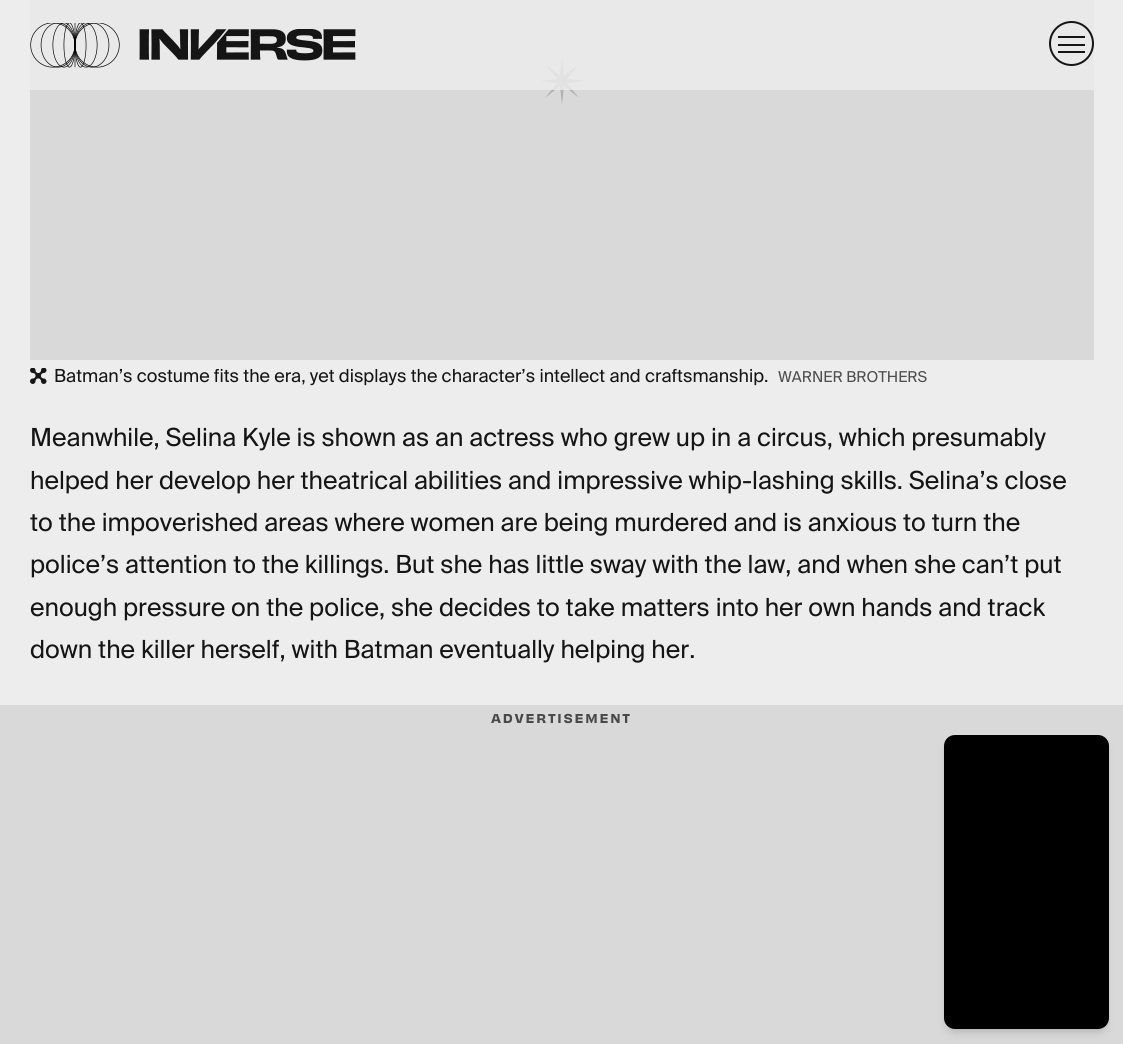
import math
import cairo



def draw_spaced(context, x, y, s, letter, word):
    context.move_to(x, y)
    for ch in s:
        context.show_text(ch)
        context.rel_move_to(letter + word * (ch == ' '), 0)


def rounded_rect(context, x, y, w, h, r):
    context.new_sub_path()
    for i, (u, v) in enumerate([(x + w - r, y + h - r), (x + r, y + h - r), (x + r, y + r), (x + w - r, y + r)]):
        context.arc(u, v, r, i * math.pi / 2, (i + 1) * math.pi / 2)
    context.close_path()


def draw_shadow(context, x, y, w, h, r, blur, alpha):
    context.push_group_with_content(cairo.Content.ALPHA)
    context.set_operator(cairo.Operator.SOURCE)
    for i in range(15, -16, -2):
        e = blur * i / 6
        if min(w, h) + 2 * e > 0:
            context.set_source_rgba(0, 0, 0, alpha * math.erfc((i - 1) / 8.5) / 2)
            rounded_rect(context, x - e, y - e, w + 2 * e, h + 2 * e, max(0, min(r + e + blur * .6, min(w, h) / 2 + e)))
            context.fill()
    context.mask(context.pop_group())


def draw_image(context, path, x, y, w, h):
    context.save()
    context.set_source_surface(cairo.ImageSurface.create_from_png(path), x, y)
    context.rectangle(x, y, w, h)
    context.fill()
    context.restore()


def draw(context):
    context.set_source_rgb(237 / 255, 237 / 255, 237 / 255)
    context.paint()
    context.set_source_rgb(217 / 255, 217 / 255, 217 / 255)
    context.rectangle(30, 0, 1064, 360)
    context.fill()
    context.set_source_rgb(178 / 255, 178 / 255, 178 / 255)
    context.new_path()
    context.move_to(562, 57)
    context.line_to(564, 76)
    context.line_to(579, 64)
    context.line_to(567, 79)
    context.line_to(586, 81)
    context.line_to(567, 83)
    context.line_to(579, 98)
    context.line_to(564, 86)
    context.line_to(562, 105)
    context.line_to(560, 86)
    context.line_to(545, 98)
    context.line_to(557, 83)
    context.line_to(539, 81)
    context.line_to(557, 79)
    context.line_to(545, 64)
    context.line_to(560, 76)
    context.close_path()
    context.fill()
    context.set_source_rgba(237 / 255, 237 / 255, 237 / 255, 0.8)
    context.rectangle(30, 0, 1064, 90)
    context.fill()
    draw_image(context, "images/1.png", 30, 23, 90, 45)
    draw_image(context, "images/2.png", 139, 29, 217, 32)
    context.arc(1071.5, 43.5, 21.5, 0, 2 * math.pi)
    context.set_source_rgb(21 / 255, 21 / 255, 21 / 255)
    context.stroke()
    context.rectangle(1058, 36, 27, 2)
    context.fill()
    context.rectangle(1058, 51, 27, 2)
    context.fill()
    context.rectangle(1058, 44, 27, 2)
    context.fill()
    draw_image(context, "images/3.png", 30, 368, 17, 16)
    context.set_source_rgb(217 / 255, 217 / 255, 217 / 255)
    context.rectangle(0, 705, 1123, 339)
    context.fill()
    context.set_source_rgb(0, 0, 0)
    draw_shadow(context, 947, 741, 159, 288, 8, 3, 0.1)
    draw_shadow(context, 945, 743, 162, 291, 9, 4.5, 0.1)
    context.set_source_rgb(0, 0, 0)
    rounded_rect(context, 944, 735, 165, 294, 11)
    context.fill()
    context.select_font_face("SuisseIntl")
    context.set_font_size(18)
    context.set_source_rgb(21 / 255, 21 / 255, 21 / 255)
    context.move_to(54, 382)
    context.show_text("Batman’s costume fits the era, yet displays the character’s intellect and craftsmanship.")
    context.set_font_size(15)
    context.set_source_rgb(79 / 255, 79 / 255, 79 / 255)
    context.move_to(778, 382)
    context.show_text("WARNER BROTHERS")
    context.set_font_size(24.95)
    context.set_source_rgb(21 / 255, 21 / 255, 21 / 255)
    context.move_to(30, 446)
    context.show_text("Meanwhile, Selina Kyle is shown as an actress who grew up in a circus, which presumably")
    context.move_to(30, 489)
    context.show_text("helped her develop her theatrical abilities and impressive whip-lashing skills. Selina’s close")
    context.move_to(30, 531)
    context.show_text("to the impoverished areas where women are being murdered and is anxious to turn the")
    context.move_to(30, 573)
    context.show_text("police’s attention to the killings. But she has little sway with the law, and when she can’t put")
    context.move_to(30, 616)
    context.show_text("enough pressure on the police, she decides to take matters into her own hands and track")
    context.move_to(30, 658)
    context.show_text("down the killer herself, with Batman eventually helping her.")
    context.select_font_face("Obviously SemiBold")
    context.set_font_size(12)
    context.set_source_rgb(73 / 255, 73 / 255, 73 / 255)
    draw_spaced(context, 491, 723, "ADVERTISEMENT", 1.75, 0)


surface = cairo.ImageSurface(cairo.Format.RGB24, 1123, 1044)
context = cairo.Context(surface)
options = cairo.FontOptions()
options.set_hint_metrics(cairo.HintMetrics.OFF)
options.set_hint_style(cairo.HintStyle.NONE)
context.set_font_options(options)
context.set_miter_limit(4)
draw(context)
surface.write_to_png("out.png")
